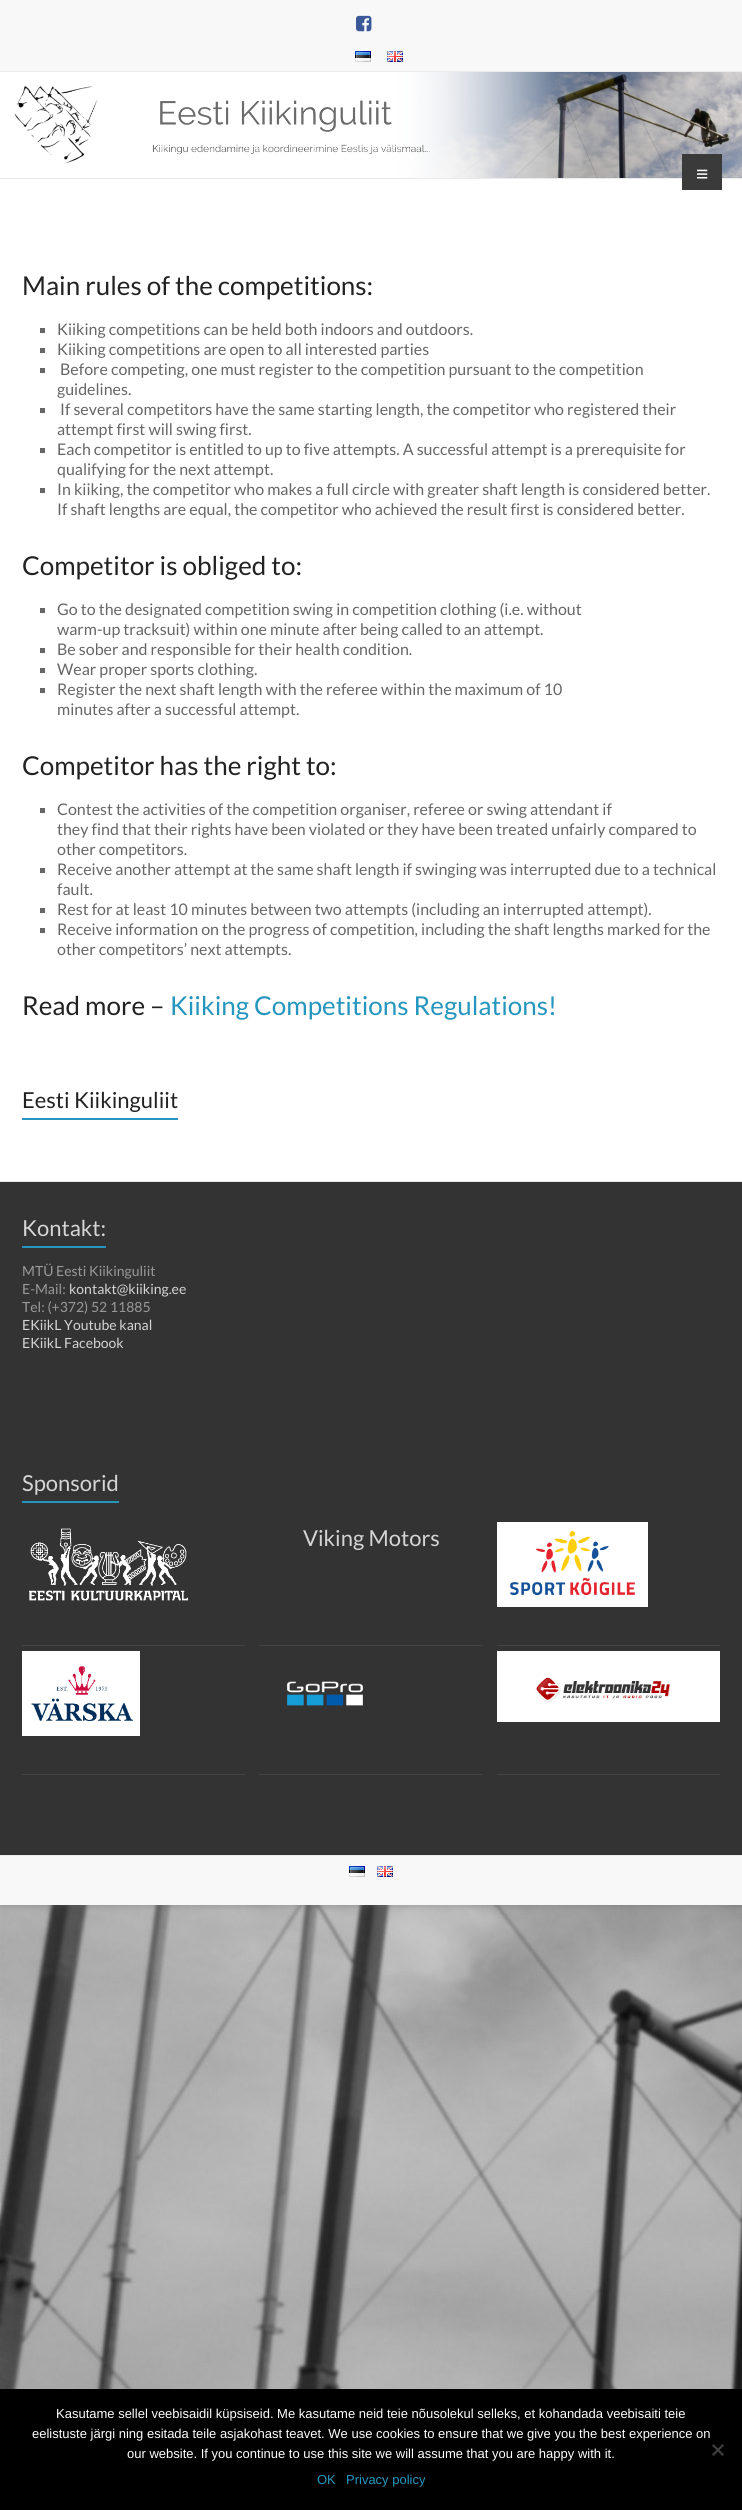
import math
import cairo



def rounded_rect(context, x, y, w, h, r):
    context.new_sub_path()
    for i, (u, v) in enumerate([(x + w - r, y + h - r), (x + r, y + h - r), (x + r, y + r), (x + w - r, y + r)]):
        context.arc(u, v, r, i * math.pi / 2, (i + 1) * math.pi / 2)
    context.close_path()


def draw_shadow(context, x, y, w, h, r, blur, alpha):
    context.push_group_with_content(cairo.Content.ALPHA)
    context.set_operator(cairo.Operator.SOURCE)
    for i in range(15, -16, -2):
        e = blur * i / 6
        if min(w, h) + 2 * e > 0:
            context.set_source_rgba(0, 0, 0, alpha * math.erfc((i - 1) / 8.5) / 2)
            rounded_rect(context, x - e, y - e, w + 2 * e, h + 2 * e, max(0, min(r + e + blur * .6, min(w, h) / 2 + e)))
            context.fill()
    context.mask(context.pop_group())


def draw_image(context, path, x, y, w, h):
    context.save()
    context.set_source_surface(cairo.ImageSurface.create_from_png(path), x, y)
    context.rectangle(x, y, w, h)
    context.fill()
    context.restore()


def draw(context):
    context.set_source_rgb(1, 1, 1)
    context.paint()
    draw_image(context, "images/1.png", 0, 1905, 742, 484)
    context.set_source_rgb(100 / 255, 100 / 255, 100 / 255)
    draw_shadow(context, 0, 2, 742, 1905, 0, 3, 0.3)
    context.set_source_rgb(1, 1, 1)
    context.rectangle(0, 72, 742, 1109)
    context.fill()
    context.set_source_rgb(248 / 255, 248 / 255, 248 / 255)
    context.rectangle(0, 0, 742, 71)
    context.fill()
    context.set_source_rgb(234 / 255, 234 / 255, 234 / 255)
    context.rectangle(0, 71, 742, 1)
    context.fill()
    draw_image(context, "images/2.png", 356, 15, 16, 17)
    draw_image(context, "images/3.png", 355, 51, 16, 11)
    draw_image(context, "images/4.png", 387, 51, 16, 11)
    draw_image(context, "images/5.png", 14, 72, 728, 106)
    context.rectangle(0, 178, 742, 1)
    context.fill()
    context.set_source_rgb(58 / 255, 58 / 255, 58 / 255)
    context.rectangle(682, 154, 40, 36)
    context.fill()
    context.set_source_rgb(102 / 255, 102 / 255, 102 / 255)
    context.rectangle(40, 328, 5, 5)
    context.fill()
    context.rectangle(40, 348, 5, 5)
    context.fill()
    context.rectangle(40, 368, 5, 5)
    context.fill()
    context.rectangle(40, 408, 5, 5)
    context.fill()
    context.rectangle(40, 448, 5, 5)
    context.fill()
    context.rectangle(40, 488, 5, 5)
    context.fill()
    context.rectangle(40, 608, 5, 5)
    context.fill()
    context.rectangle(40, 648, 5, 5)
    context.fill()
    context.rectangle(40, 668, 5, 5)
    context.fill()
    context.rectangle(40, 688, 5, 5)
    context.fill()
    context.rectangle(40, 808, 5, 5)
    context.fill()
    context.rectangle(40, 868, 5, 5)
    context.fill()
    context.rectangle(40, 908, 5, 5)
    context.fill()
    context.rectangle(40, 928, 5, 5)
    context.fill()
    context.set_source_rgb(37 / 255, 150 / 255, 190 / 255)
    context.rectangle(22, 1118, 156, 2)
    context.fill()
    context.set_source_rgb(51 / 255, 51 / 255, 51 / 255)
    context.rectangle(0, 1182, 742, 673)
    context.fill()
    context.set_source_rgb(234 / 255, 234 / 255, 234 / 255)
    context.rectangle(0, 1181, 742, 1)
    context.fill()
    context.set_source_rgb(37 / 255, 150 / 255, 190 / 255)
    context.rectangle(22, 1246, 84, 2)
    context.fill()
    context.rectangle(22, 1501, 97, 2)
    context.fill()
    context.set_source_rgb(68 / 255, 68 / 255, 68 / 255)
    context.rectangle(22, 1645, 223, 1)
    context.fill()
    draw_image(context, "images/6.png", 29, 1528, 159, 73)
    context.rectangle(259, 1645, 224, 1)
    context.fill()
    context.rectangle(497, 1645, 223, 1)
    context.fill()
    draw_image(context, "images/7.png", 497, 1522, 151, 85)
    context.rectangle(22, 1774, 223, 1)
    context.fill()
    draw_image(context, "images/8.png", 22, 1651, 118, 85)
    context.rectangle(259, 1774, 224, 1)
    context.fill()
    draw_image(context, "images/9.png", 287, 1681, 76, 25)
    context.rectangle(497, 1774, 223, 1)
    context.fill()
    draw_image(context, "images/10.png", 497, 1651, 223, 71)
    context.set_source_rgb(248 / 255, 248 / 255, 248 / 255)
    context.rectangle(0, 1856, 742, 49)
    context.fill()
    context.set_source_rgb(234 / 255, 234 / 255, 234 / 255)
    context.rectangle(0, 1855, 742, 1)
    context.fill()
    draw_image(context, "images/3.png", 349, 1866, 16, 11)
    draw_image(context, "images/4.png", 377, 1866, 16, 11)
    context.set_source_rgb(0, 0, 0)
    context.rectangle(0, 2389, 742, 121)
    context.fill()
    context.set_source_rgb(64 / 255, 64 / 255, 64 / 255)
    context.new_path()
    context.move_to(722.5, 2444)
    context.line_to(724, 2445.5)
    context.line_to(713.5, 2456)
    context.line_to(712, 2454.5)
    context.close_path()
    context.fill()
    context.new_path()
    context.move_to(712, 2445.5)
    context.line_to(713.5, 2444)
    context.line_to(724, 2454.5)
    context.line_to(722.5, 2456)
    context.close_path()
    context.fill()
    context.select_font_face("Liberation Sans")
    context.set_font_size(21)
    context.set_source_rgb(1, 1, 1)
    context.move_to(696, 181)
    context.show_text("≡")
    context.select_font_face("Lato")
    context.set_font_size(26)
    context.set_source_rgb(34 / 255, 34 / 255, 34 / 255)
    context.move_to(22, 295)
    context.show_text("Main rules of the competitions:")
    context.set_font_size(16)
    context.set_source_rgb(102 / 255, 102 / 255, 102 / 255)
    context.move_to(57, 335)
    context.show_text("Kiiking competitions can be held both indoors and outdoors.")
    context.move_to(57, 355)
    context.show_text("Kiiking competitions are open to all interested parties")
    context.move_to(60, 375)
    context.show_text("Before competing, one must register to the competition pursuant to the competition")
    context.move_to(57, 395)
    context.show_text("guidelines.")
    context.move_to(60, 415)
    context.show_text("If several competitors have the same starting length, the competitor who registered their")
    context.move_to(57, 435)
    context.show_text("attempt first will swing first.")
    context.move_to(57, 455)
    context.show_text("Each competitor is entitled to up to five attempts. A successful attempt is a prerequisite for")
    context.move_to(57, 475)
    context.show_text("qualifying for the next attempt.")
    context.move_to(57, 495)
    context.show_text("In kiiking, the competitor who makes a full circle with greater shaft length is considered better.")
    context.move_to(57, 515)
    context.show_text("If shaft lengths are equal, the competitor who achieved the result first is considered better.")
    context.set_font_size(26)
    context.set_source_rgb(34 / 255, 34 / 255, 34 / 255)
    context.move_to(22, 575)
    context.show_text("Competitor is obliged to:")
    context.set_font_size(16)
    context.set_source_rgb(102 / 255, 102 / 255, 102 / 255)
    context.move_to(57, 615)
    context.show_text("Go to the designated competition swing in competition clothing (i.e. without")
    context.move_to(57, 635)
    context.show_text("warm-up tracksuit) within one minute after being called to an attempt.")
    context.move_to(57, 655)
    context.show_text("Be sober and responsible for their health condition.")
    context.move_to(57, 675)
    context.show_text("Wear proper sports clothing.")
    context.move_to(57, 695)
    context.show_text("Register the next shaft length with the referee within the maximum of 10")
    context.move_to(57, 715)
    context.show_text("minutes after a successful attempt.")
    context.set_font_size(26)
    context.set_source_rgb(34 / 255, 34 / 255, 34 / 255)
    context.move_to(22, 775)
    context.show_text("Competitor has the right to:")
    context.set_font_size(16)
    context.set_source_rgb(102 / 255, 102 / 255, 102 / 255)
    context.move_to(57, 815)
    context.show_text("Contest the activities of the competition organiser, referee or swing attendant if")
    context.move_to(57, 835)
    context.show_text("they find that their rights have been violated or they have been treated unfairly compared to")
    context.move_to(57, 855)
    context.show_text("other competitors.")
    context.move_to(57, 875)
    context.show_text("Receive another attempt at the same shaft length if swinging was interrupted due to a technical")
    context.move_to(57, 895)
    context.show_text("fault.")
    context.move_to(57, 915)
    context.show_text("Rest for at least 10 minutes between two attempts (including an interrupted attempt).")
    context.move_to(57, 935)
    context.show_text("Receive information on the progress of competition, including the shaft lengths marked for the")
    context.move_to(57, 955)
    context.show_text("other competitors’ next attempts.")
    context.set_font_size(26)
    context.set_source_rgb(34 / 255, 34 / 255, 34 / 255)
    context.move_to(22, 1015)
    context.show_text("Read more –")
    context.set_source_rgb(37 / 255, 150 / 255, 190 / 255)
    context.move_to(170, 1015)
    context.show_text("Kiiking Competitions Regulations!")
    context.set_font_size(22)
    context.set_source_rgb(34 / 255, 34 / 255, 34 / 255)
    context.move_to(22, 1108)
    context.show_text("Eesti Kiikinguliit")
    context.set_source_rgb(213 / 255, 213 / 255, 213 / 255)
    context.move_to(22, 1236)
    context.show_text("Kontakt:")
    context.set_font_size(14)
    context.set_source_rgb(153 / 255, 153 / 255, 153 / 255)
    context.move_to(22, 1276)
    context.show_text("MTÜ Eesti Kiikinguliit")
    context.move_to(22, 1294)
    context.show_text("E-Mail:")
    context.set_source_rgb(213 / 255, 213 / 255, 213 / 255)
    context.move_to(69, 1294)
    context.show_text("kontakt@kiiking.ee")
    context.set_source_rgb(153 / 255, 153 / 255, 153 / 255)
    context.move_to(22, 1312)
    context.show_text("Tel: (+372) 52 11885")
    context.set_source_rgb(213 / 255, 213 / 255, 213 / 255)
    context.move_to(22, 1330)
    context.show_text("EKiikL Youtube kanal")
    context.move_to(22, 1348)
    context.show_text("EKiikL Facebook")
    context.set_font_size(22)
    context.move_to(22, 1491)
    context.show_text("Sponsorid")
    context.move_to(303, 1546)
    context.show_text("Viking Motors")
    context.select_font_face("Liberation Sans")
    context.set_font_size(13)
    context.set_source_rgb(1, 1, 1)
    context.move_to(56, 2418)
    context.show_text("Kasutame sellel veebisaidil küpsiseid. Me kasutame neid teie nõusolekul selleks, et kohandada veebisaiti teie")
    context.move_to(32, 2438)
    context.show_text("eelistuste järgi ning esitada teile asjakohast teavet. We use cookies to ensure that we give you the best experience on")
    context.move_to(127, 2458)
    context.show_text("our website. If you continue to use this site we will assume that you are happy with it.")
    context.set_source_rgb(37 / 255, 150 / 255, 190 / 255)
    context.move_to(317, 2484)
    context.show_text("OK")
    context.move_to(346, 2484)
    context.show_text("Privacy policy")


surface = cairo.ImageSurface(cairo.Format.RGB24, 742, 2510)
context = cairo.Context(surface)
options = cairo.FontOptions()
options.set_hint_metrics(cairo.HintMetrics.OFF)
options.set_hint_style(cairo.HintStyle.NONE)
context.set_font_options(options)
context.set_miter_limit(4)
draw(context)
surface.write_to_png("out.png")
